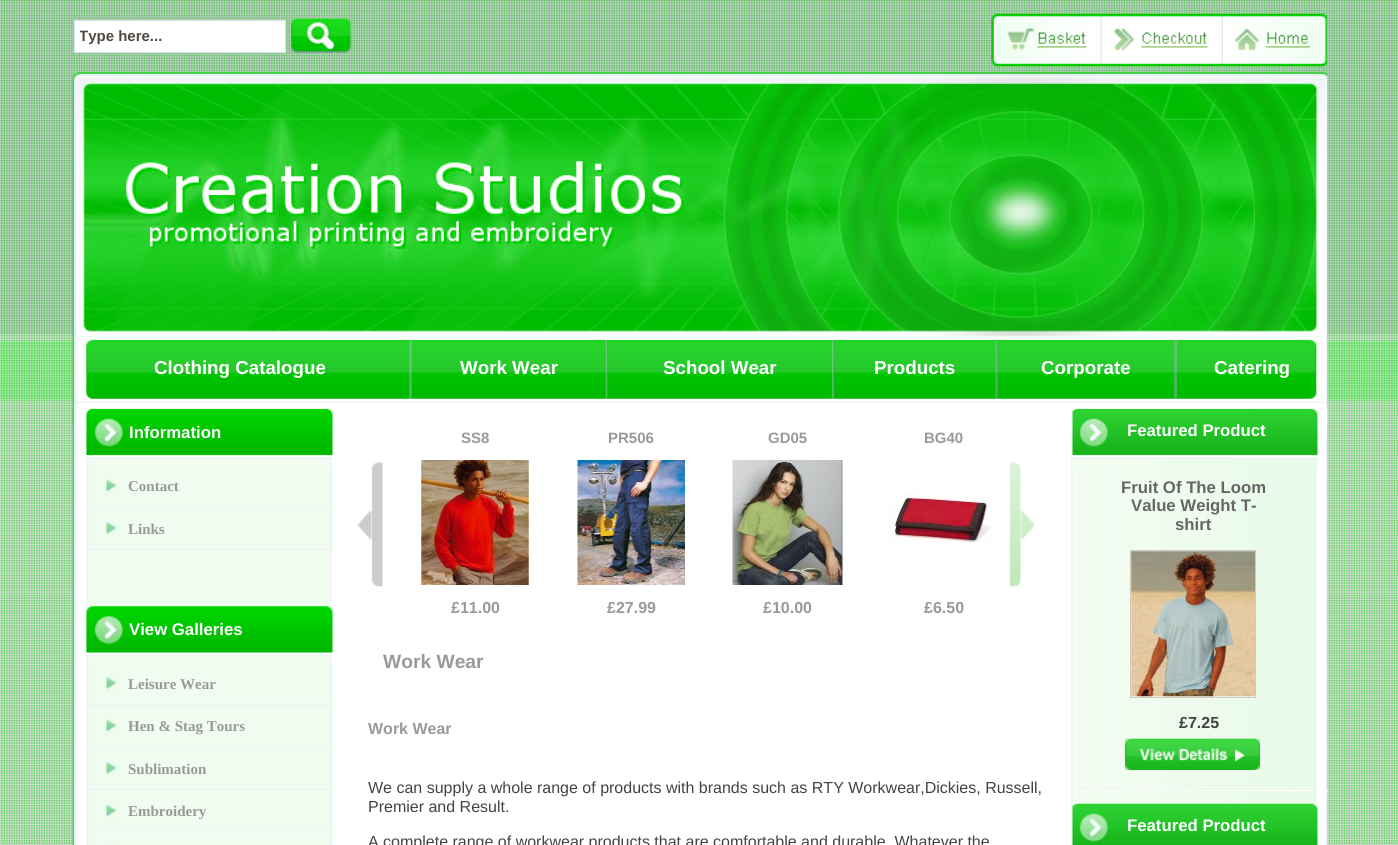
import math
import cairo



def draw_image(context, path, x, y, w, h):
    context.save()
    context.set_source_surface(cairo.ImageSurface.create_from_png(path), x, y)
    context.rectangle(x, y, w, h)
    context.fill()
    context.restore()


def draw(context):
    context.set_source_rgb(1, 1, 1)
    context.paint()
    draw_image(context, "images/1.png", 0, 592, 1398, 253)
    draw_image(context, "images/2.png", 0, 0, 1398, 593)
    context.set_source_rgb(1, 1, 1)
    context.rectangle(74.5, 20.5, 211, 32)
    context.fill_preserve()
    context.set_source_rgb(212 / 255, 227 / 255, 237 / 255)
    context.set_line_width(1)
    context.stroke()
    draw_image(context, "images/3.png", 291, 18, 61, 35)
    draw_image(context, "images/4.png", 991, 13, 111, 54)
    draw_image(context, "images/5.png", 1101, 13, 122, 54)
    draw_image(context, "images/6.png", 1222, 13, 106, 54)
    draw_image(context, "images/7.png", 72, 72, 1256, 265)
    draw_image(context, "images/8.png", 126, 161, 558, 56)
    draw_image(context, "images/9.png", 149, 221, 466, 28)
    draw_image(context, "images/10.png", 72, 336, 1256, 67)
    context.set_source_rgba(161 / 255, 179 / 255, 193 / 255, 0.44)
    context.rectangle(409, 340, 3, 59)
    context.fill()
    draw_image(context, "images/11.png", 605, 339, 4, 60)
    draw_image(context, "images/12.png", 831, 340, 4, 59)
    draw_image(context, "images/13.png", 995, 340, 4, 59)
    context.rectangle(1174, 340, 3, 59)
    context.fill()
    draw_image(context, "images/14.png", 72, 402, 1256, 23)
    draw_image(context, "images/15.png", 72, 408, 1256, 437)
    context.set_source_rgb(1, 1, 1)
    context.rectangle(76, 409, 1251, 25)
    context.fill()
    draw_image(context, "images/16.png", 86, 408, 247, 51)
    draw_image(context, "images/17.png", 86, 465, 247, 43)
    draw_image(context, "images/18.png", 87, 507, 246, 43)
    draw_image(context, "images/19.png", 86, 606, 247, 50)
    draw_image(context, "images/20.png", 87, 662, 246, 43)
    draw_image(context, "images/17.png", 86, 705, 247, 43)
    draw_image(context, "images/18.png", 87, 747, 246, 43)
    draw_image(context, "images/17.png", 86, 790, 247, 43)
    draw_image(context, "images/21.png", 92, 832, 241, 13)
    draw_image(context, "images/22.png", 357, 462, 26, 125)
    draw_image(context, "images/23.png", 421, 460, 108, 125)
    draw_image(context, "images/24.png", 577, 460, 108, 125)
    draw_image(context, "images/25.png", 732, 460, 111, 125)
    draw_image(context, "images/26.png", 890, 492, 102, 51)
    draw_image(context, "images/27.png", 1010, 462, 25, 125)
    draw_image(context, "images/28.png", 1072, 408, 246, 60)
    context.rectangle(1073, 790, 255, 1)
    context.fill()
    context.save()
    context.rectangle(1073, 468, 255, 322)
    context.clip()
    context.new_path()
    context.move_to(1072.5, 789.5)
    context.line_to(1315, 789.5)
    context.set_source_rgb(238 / 255, 238 / 255, 238 / 255)
    context.set_line_width(1.2)
    context.set_dash([3.75, 2.54])
    context.stroke()
    context.restore()
    context.rectangle(1130.5, 550.5, 125, 147)
    context.set_source_rgb(210 / 255, 201 / 255, 187 / 255)
    context.stroke()
    draw_image(context, "images/29.png", 1131, 551, 124, 146)
    draw_image(context, "images/30.png", 1125, 738, 135, 32)
    draw_image(context, "images/31.png", 1072, 803, 246, 42)
    context.save()
    context.rectangle(80, 28, 200, 17)
    context.clip()
    context.select_font_face("Liberation Sans", cairo.FontSlant.NORMAL, cairo.FontWeight.BOLD)
    context.set_font_size(15)
    context.set_source_rgb(81 / 255, 73 / 255, 65 / 255)
    context.move_to(79, 41)
    context.show_text("Type here...")
    context.restore()
    context.select_font_face("Liberation Sans", cairo.FontSlant.NORMAL, cairo.FontWeight.BOLD)
    context.set_font_size(18.75)
    context.set_source_rgb(1, 1, 1)
    context.move_to(154, 374)
    context.show_text("Clothing Catalogue")
    context.move_to(460, 374)
    context.show_text("Work Wear")
    context.move_to(663, 374)
    context.show_text("School Wear")
    context.move_to(874, 374)
    context.show_text("Products")
    context.move_to(1041, 374)
    context.show_text("Corporate")
    context.move_to(1214, 374)
    context.show_text("Catering")
    context.set_font_size(16.75)
    context.move_to(129, 438)
    context.show_text("Information")
    context.select_font_face("Liberation Serif", cairo.FontSlant.NORMAL, cairo.FontWeight.BOLD)
    context.set_font_size(15)
    context.set_source_rgb(153 / 255, 153 / 255, 153 / 255)
    context.move_to(128, 491)
    context.show_text("Contact")
    context.move_to(128, 534)
    context.show_text("Links")
    context.select_font_face("Liberation Sans", cairo.FontSlant.NORMAL, cairo.FontWeight.BOLD)
    context.set_font_size(16.75)
    context.set_source_rgb(1, 1, 1)
    context.move_to(129, 635)
    context.show_text("View Galleries")
    context.select_font_face("Liberation Serif", cairo.FontSlant.NORMAL, cairo.FontWeight.BOLD)
    context.set_font_size(15)
    context.set_source_rgb(153 / 255, 153 / 255, 153 / 255)
    context.move_to(128, 689)
    context.show_text("Leisure Wear")
    context.move_to(128, 731)
    context.show_text("Hen & Stag Tours")
    context.move_to(128, 774)
    context.show_text("Sublimation")
    context.move_to(128, 816)
    context.show_text("Embroidery")
    context.select_font_face("Liberation Sans", cairo.FontSlant.NORMAL, cairo.FontWeight.BOLD)
    context.move_to(461, 443)
    context.show_text("SS8")
    context.set_font_size(16)
    context.move_to(451, 613)
    context.show_text("£11.00")
    context.set_font_size(15)
    context.move_to(608, 443)
    context.show_text("PR506")
    context.set_font_size(16)
    context.move_to(607, 613)
    context.show_text("£27.99")
    context.set_font_size(15)
    context.move_to(768, 443)
    context.show_text("GD05")
    context.set_font_size(16)
    context.move_to(763, 613)
    context.show_text("£10.00")
    context.set_font_size(15)
    context.move_to(924, 443)
    context.show_text("BG40")
    context.set_font_size(16)
    context.move_to(924, 613)
    context.show_text("£6.50")
    context.set_font_size(19.25)
    context.move_to(383, 668)
    context.show_text("Work Wear")
    context.set_font_size(16)
    context.move_to(368, 734)
    context.show_text("Work Wear")
    context.select_font_face("Liberation Sans")
    context.set_source_rgb(67 / 255, 67 / 255, 67 / 255)
    context.move_to(368, 793)
    context.show_text("We can supply a whole range of products with brands such as RTY Workwear,Dickies, Russell,")
    context.move_to(368, 812)
    context.show_text("Premier and Result.")
    context.move_to(368, 847)
    context.show_text("A complete range of workwear products that are comfortable and durable. Whatever the")
    context.select_font_face("Liberation Sans", cairo.FontSlant.NORMAL, cairo.FontWeight.BOLD)
    context.set_font_size(16.75)
    context.set_source_rgb(1, 1, 1)
    context.move_to(1127, 436)
    context.show_text("Featured Product")
    context.set_source_rgb(102 / 255, 102 / 255, 102 / 255)
    context.move_to(1121, 493)
    context.show_text("Fruit Of The Loom")
    context.move_to(1131, 511)
    context.show_text("Value Weight T-")
    context.move_to(1175, 530)
    context.show_text("shirt")
    context.set_font_size(16)
    context.set_source_rgb(67 / 255, 67 / 255, 67 / 255)
    context.move_to(1179, 728)
    context.show_text("£7.25")
    context.set_font_size(16.75)
    context.set_source_rgb(1, 1, 1)
    context.move_to(1127, 831)
    context.show_text("Featured Product")


surface = cairo.ImageSurface(cairo.Format.RGB24, 1398, 845)
context = cairo.Context(surface)
options = cairo.FontOptions()
options.set_hint_metrics(cairo.HintMetrics.OFF)
options.set_hint_style(cairo.HintStyle.NONE)
context.set_font_options(options)
context.set_miter_limit(4)
draw(context)
surface.write_to_png("out.png")
